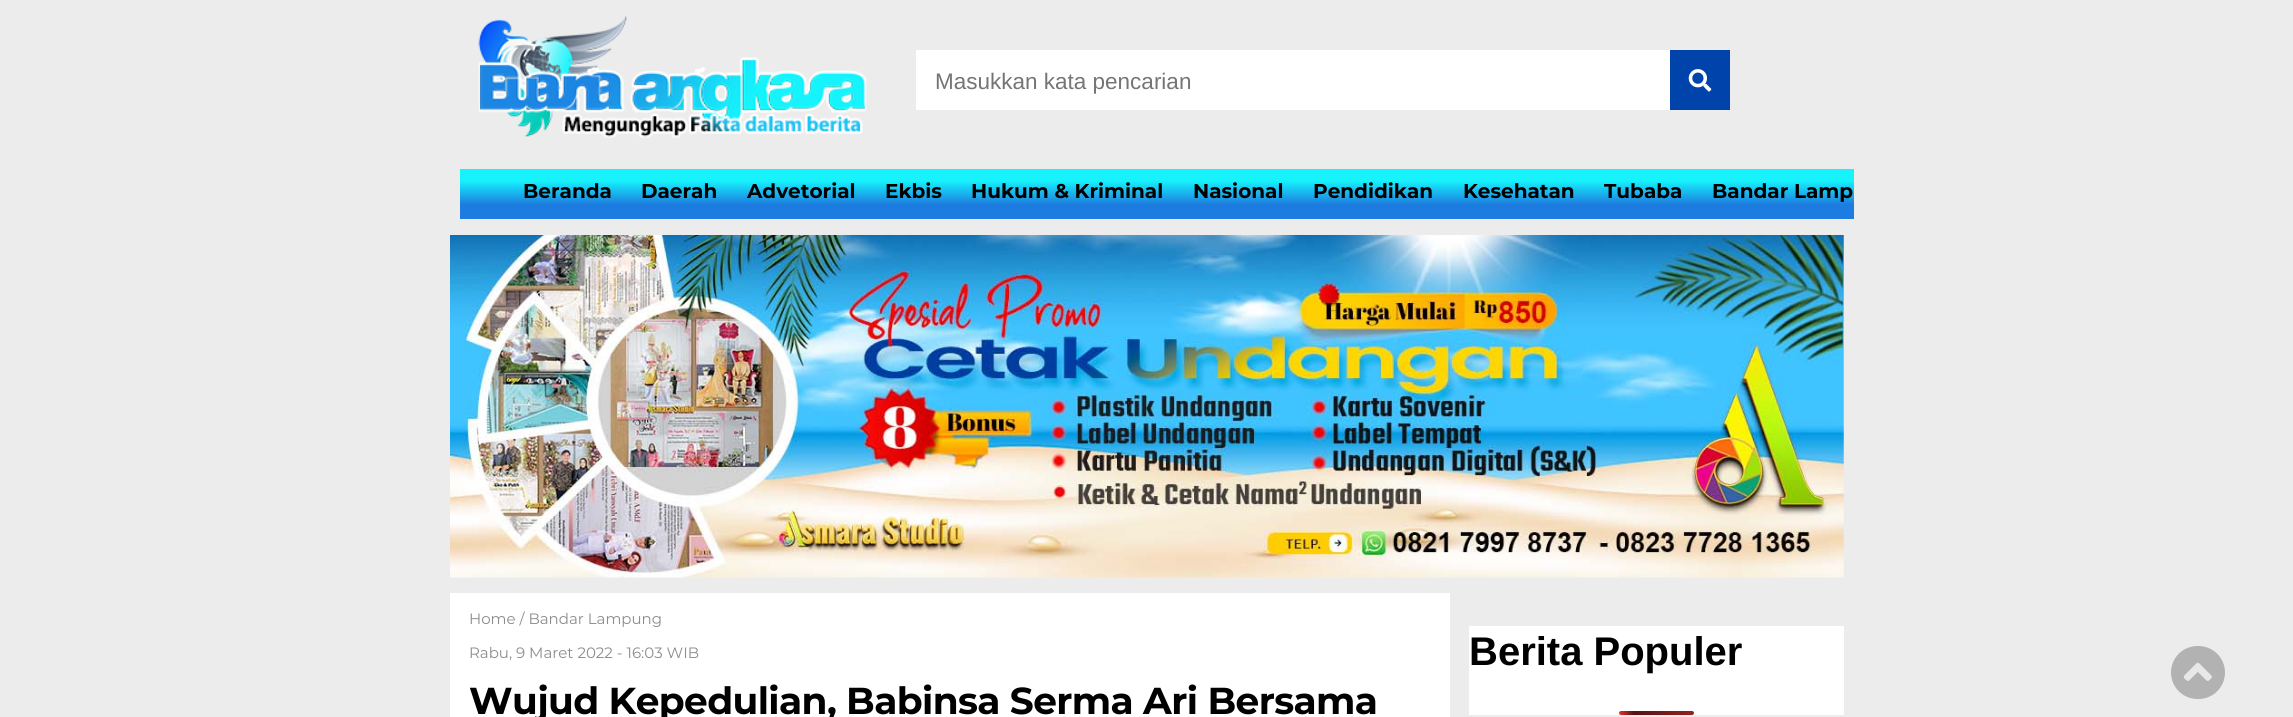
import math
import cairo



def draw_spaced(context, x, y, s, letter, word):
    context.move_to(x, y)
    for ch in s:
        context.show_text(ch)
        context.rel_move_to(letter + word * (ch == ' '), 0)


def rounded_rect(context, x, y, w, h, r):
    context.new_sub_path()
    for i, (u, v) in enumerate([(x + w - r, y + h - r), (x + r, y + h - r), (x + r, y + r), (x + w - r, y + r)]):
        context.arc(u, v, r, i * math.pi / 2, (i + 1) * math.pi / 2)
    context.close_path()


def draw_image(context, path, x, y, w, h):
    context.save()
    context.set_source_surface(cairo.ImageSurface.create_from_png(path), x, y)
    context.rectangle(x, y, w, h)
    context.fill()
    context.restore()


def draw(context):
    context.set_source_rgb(236 / 255, 236 / 255, 236 / 255)
    context.paint()
    draw_image(context, "images/1.png", 478, 15, 389, 123)
    context.set_source_rgb(1, 1, 1)
    context.rectangle(916, 50, 754, 60)
    context.fill()
    context.set_source_rgb(0, 67 / 255, 171 / 255)
    context.rectangle(1670, 50, 60, 60)
    context.fill()
    draw_image(context, "images/2.png", 1688, 69, 24, 23)
    gradient = cairo.LinearGradient(1157, 169, 1157, 219)
    gradient.add_color_stop_rgba(0.23, 22 / 255, 243 / 255, 252 / 255, 1)
    gradient.add_color_stop_rgba(0.71, 29 / 255, 124 / 255, 223 / 255, 1)
    context.set_source(gradient)
    context.rectangle(460, 169, 1394, 50)
    context.fill()
    draw_image(context, "images/3.png", 450, 235, 1394, 343)
    context.set_source_rgb(1, 1, 1)
    context.rectangle(450, 593, 1000, 124)
    context.fill()
    context.rectangle(1469, 626, 375, 89)
    context.fill()
    gradient = cairo.LinearGradient(1619, 713, 1769, 713)
    gradient.add_color_stop_rgba(0, 221 / 255, 55 / 255, 55 / 255, 1)
    gradient.add_color_stop_rgba(0.1, 87 / 255, 19 / 255, 19 / 255, 1)
    gradient.add_color_stop_rgba(1, 221 / 255, 55 / 255, 55 / 255, 1)
    context.set_source(gradient)
    rounded_rect(context, 1619, 711, 75, 4, 2)
    context.fill()
    context.set_source_rgb(178 / 255, 178 / 255, 178 / 255)
    rounded_rect(context, 2171, 646, 54, 53, 26.5)
    context.fill()
    draw_image(context, "images/4.png", 2183, 662, 29, 19)
    context.select_font_face("Liberation Sans")
    context.set_font_size(22.5)
    context.set_source_rgb(117 / 255, 117 / 255, 117 / 255)
    context.move_to(935, 89)
    context.show_text("Masukkan kata pencarian")
    context.select_font_face("Montserrat", cairo.FontSlant.NORMAL, cairo.FontWeight.BOLD)
    context.set_font_size(20)
    context.set_source_rgb(0, 0, 0)
    context.move_to(523, 198)
    context.show_text("Beranda")
    context.move_to(641, 198)
    context.show_text("Daerah")
    context.move_to(747, 198)
    context.show_text("Advetorial")
    context.move_to(885, 198)
    context.show_text("Ekbis")
    context.move_to(971, 198)
    context.show_text("Hukum & Kriminal")
    context.move_to(1193, 198)
    context.show_text("Nasional")
    context.move_to(1313, 198)
    context.show_text("Pendidikan")
    context.move_to(1463, 198)
    context.show_text("Kesehatan")
    context.move_to(1604, 198)
    context.show_text("Tubaba")
    context.move_to(1712, 198)
    context.show_text("Bandar Lamp")
    context.select_font_face("Montserrat")
    context.set_font_size(15)
    context.set_source_rgb(140 / 255, 140 / 255, 140 / 255)
    context.move_to(469, 624)
    context.show_text("Home / Bandar Lampung")
    context.move_to(469, 658)
    context.show_text("Rabu, 9 Maret 2022 - 16:03 WIB")
    context.select_font_face("Montserrat", cairo.FontSlant.NORMAL, cairo.FontWeight.BOLD)
    context.set_font_size(37.5)
    context.set_source_rgb(0, 0, 0)
    draw_spaced(context, 469, 714, "Wujud Kepedulian, Babinsa Serma Ari Bersama", -0.6, 0)
    context.select_font_face("Liberation Sans", cairo.FontSlant.NORMAL, cairo.FontWeight.BOLD)
    context.set_font_size(40)
    context.move_to(1469, 665)
    context.show_text("Berita Populer")


surface = cairo.ImageSurface(cairo.Format.RGB24, 2293, 717)
context = cairo.Context(surface)
options = cairo.FontOptions()
options.set_hint_metrics(cairo.HintMetrics.OFF)
options.set_hint_style(cairo.HintStyle.NONE)
context.set_font_options(options)
context.set_miter_limit(4)
draw(context)
surface.write_to_png("out.png")
